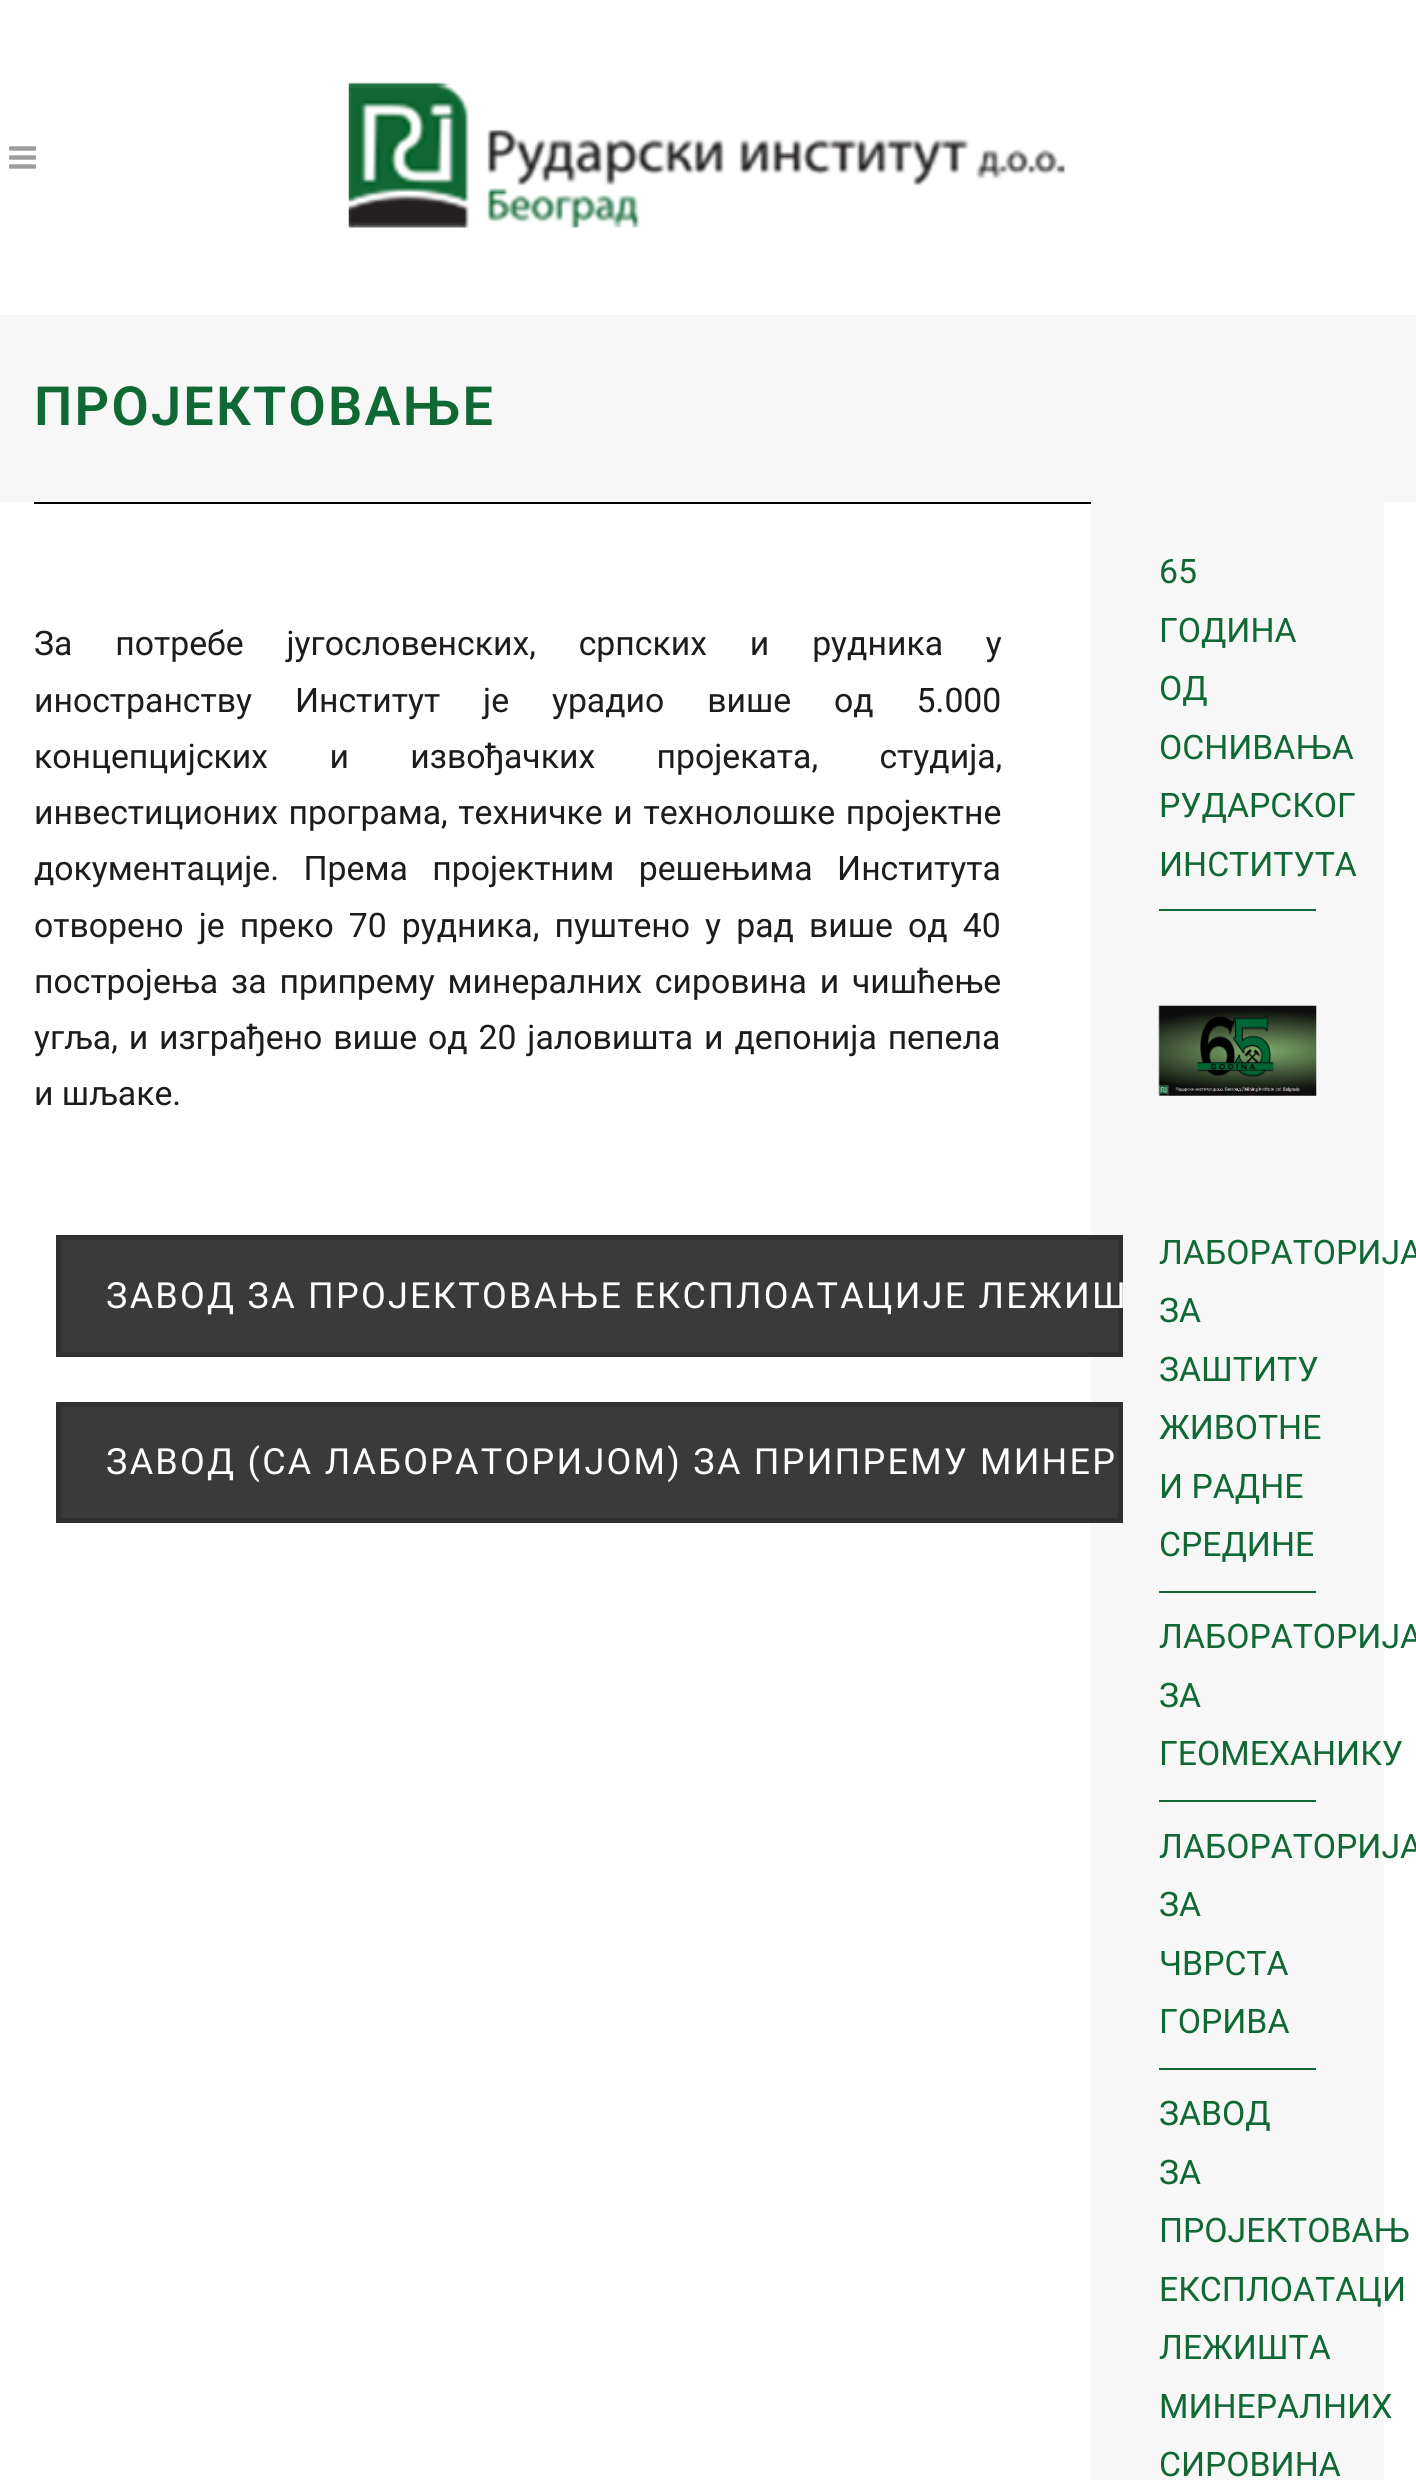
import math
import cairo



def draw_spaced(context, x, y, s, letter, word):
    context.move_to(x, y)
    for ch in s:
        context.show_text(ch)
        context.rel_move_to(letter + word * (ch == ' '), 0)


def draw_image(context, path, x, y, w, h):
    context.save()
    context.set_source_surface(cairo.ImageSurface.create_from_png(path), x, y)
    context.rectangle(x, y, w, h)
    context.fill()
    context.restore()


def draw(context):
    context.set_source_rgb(1, 1, 1)
    context.paint()
    draw_image(context, "images/1.png", 9, 146, 27, 23)
    draw_image(context, "images/2.png", 348, 82, 717, 146)
    context.set_source_rgb(247 / 255, 247 / 255, 247 / 255)
    context.rectangle(0, 315, 1416, 187)
    context.fill()
    context.set_source_rgb(0, 0, 0)
    context.rectangle(34, 502, 1057, 2)
    context.fill()
    context.set_source_rgb(247 / 255, 247 / 255, 247 / 255)
    context.rectangle(1091, 502, 293, 1978)
    context.fill()
    context.set_source_rgb(58 / 255, 58 / 255, 58 / 255)
    context.rectangle(58.5, 1237.5, 1062, 117)
    context.fill_preserve()
    context.set_source_rgb(48 / 255, 48 / 255, 48 / 255)
    context.set_line_width(5)
    context.stroke()
    context.set_source_rgb(58 / 255, 58 / 255, 58 / 255)
    context.rectangle(58.5, 1404.5, 1062, 116)
    context.fill_preserve()
    context.set_source_rgb(48 / 255, 48 / 255, 48 / 255)
    context.stroke()
    context.set_source_rgb(16 / 255, 104 / 255, 53 / 255)
    context.rectangle(1159, 909, 157, 2)
    context.fill()
    draw_image(context, "images/3.png", 1158, 1005, 159, 91)
    context.rectangle(1159, 1591, 157, 2)
    context.fill()
    context.rectangle(1159, 1800, 157, 2)
    context.fill()
    context.rectangle(1159, 2068, 157, 2)
    context.fill()
    context.select_font_face("Roboto SemiBold")
    context.set_font_size(54)
    draw_spaced(context, 34, 425, "ПРОЈЕКТОВАЊЕ", 2.25, 0)
    context.select_font_face("Roboto")
    context.set_font_size(33.75)
    context.set_source_rgb(28 / 255, 28 / 255, 28 / 255)
    draw_spaced(context, 34, 655, "За потребе југословенских, српских и рудника у", 0, 34.5)
    draw_spaced(context, 34, 712, "иностранству Институт је урадио више од 5.000", 0, 34.5)
    draw_spaced(context, 34, 768, "концепцијских и извођачких пројеката, студија,", 0, 53)
    draw_spaced(context, 34, 824, "инвестиционих програма, техничке и технолошке пројектне", 0, 2.25)
    draw_spaced(context, 34, 880, "документације. Према пројектним решењима Института", 0, 16)
    draw_spaced(context, 34, 937, "отворено је преко 70 рудника, пуштено у рад више од 40", 0, 6.75)
    draw_spaced(context, 34, 993, "постројења за припрему минералних сировина и чишћење", 0, 4.5)
    draw_spaced(context, 34, 1049, "угља, и изграђено више од 20 јаловишта и депонија пепела", 0, 2.5)
    context.move_to(34, 1105)
    context.show_text("и шљаке.")
    context.set_font_size(36)
    context.set_source_rgb(1, 1, 1)
    draw_spaced(context, 106, 1308, "ЗАВОД ЗА ПРОЈЕКТОВАЊЕ ЕКСПЛОАТАЦИЈЕ ЛЕЖИШ", 2.25, 0)
    draw_spaced(context, 106, 1474, "ЗАВОД (СА ЛАБОРАТОРИЈОМ) ЗА ПРИПРЕМУ МИНЕР", 2.25, 0)
    context.set_font_size(33.75)
    context.set_source_rgb(16 / 255, 104 / 255, 53 / 255)
    context.move_to(1159, 583)
    context.show_text("65")
    context.move_to(1159, 642)
    context.show_text("ГОДИНА")
    context.move_to(1159, 700)
    context.show_text("ОД")
    context.move_to(1159, 759)
    context.show_text("ОСНИВАЊА")
    context.move_to(1159, 817)
    context.show_text("РУДАРСКОГ")
    context.move_to(1159, 876)
    context.show_text("ИНСТИТУТА")
    context.move_to(1159, 1264)
    context.show_text("ЛАБОРАТОРИЈА")
    context.move_to(1159, 1322)
    context.show_text("ЗА")
    context.move_to(1159, 1381)
    context.show_text("ЗАШТИТУ")
    context.move_to(1159, 1439)
    context.show_text("ЖИВОТНЕ")
    context.move_to(1159, 1498)
    context.show_text("И РАДНЕ")
    context.move_to(1159, 1556)
    context.show_text("СРЕДИНЕ")
    context.move_to(1159, 1648)
    context.show_text("ЛАБОРАТОРИЈА")
    context.move_to(1159, 1707)
    context.show_text("ЗА")
    context.move_to(1159, 1765)
    context.show_text("ГЕОМЕХАНИКУ")
    context.move_to(1159, 1858)
    context.show_text("ЛАБОРАТОРИЈА")
    context.move_to(1159, 1916)
    context.show_text("ЗА")
    context.move_to(1159, 1975)
    context.show_text("ЧВРСТА")
    context.move_to(1159, 2033)
    context.show_text("ГОРИВА")
    context.move_to(1159, 2125)
    context.show_text("ЗАВОД")
    context.move_to(1159, 2184)
    context.show_text("ЗА")
    context.move_to(1159, 2242)
    context.show_text("ПРОЈЕКТОВАЊ")
    context.move_to(1159, 2301)
    context.show_text("ЕКСПЛОАТАЦИ")
    context.move_to(1159, 2359)
    context.show_text("ЛЕЖИШТА")
    context.move_to(1159, 2418)
    context.show_text("МИНЕРАЛНИХ")
    context.move_to(1159, 2476)
    context.show_text("СИРОВИНА")


surface = cairo.ImageSurface(cairo.Format.RGB24, 1416, 2480)
context = cairo.Context(surface)
options = cairo.FontOptions()
options.set_hint_metrics(cairo.HintMetrics.OFF)
options.set_hint_style(cairo.HintStyle.NONE)
context.set_font_options(options)
context.set_miter_limit(4)
draw(context)
surface.write_to_png("out.png")
